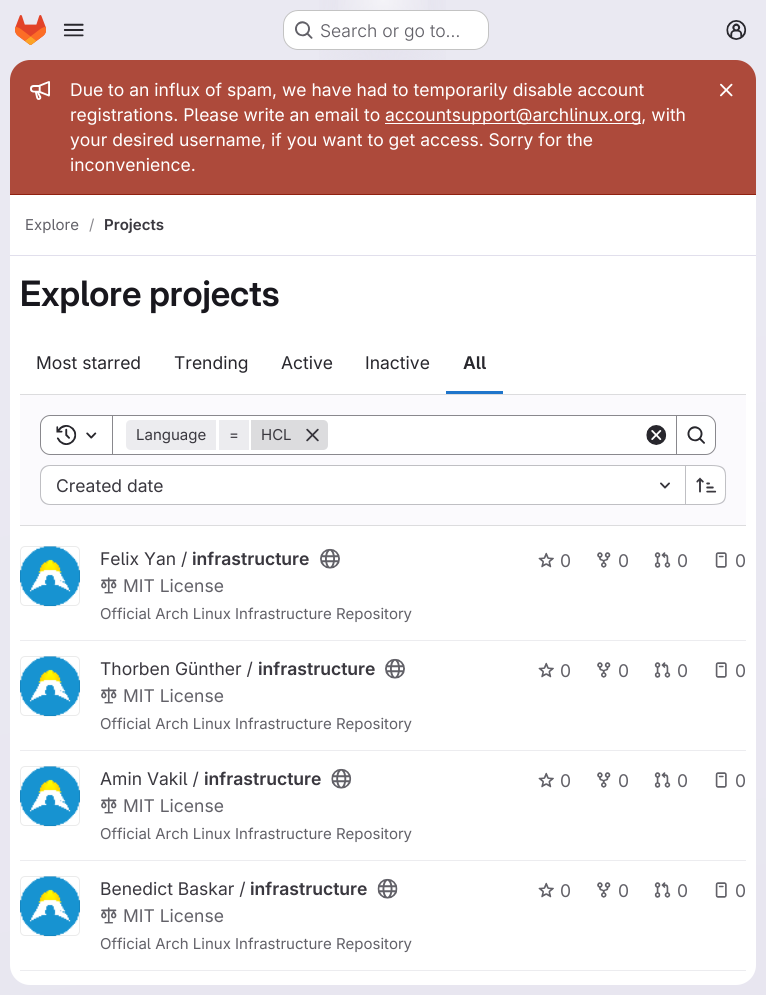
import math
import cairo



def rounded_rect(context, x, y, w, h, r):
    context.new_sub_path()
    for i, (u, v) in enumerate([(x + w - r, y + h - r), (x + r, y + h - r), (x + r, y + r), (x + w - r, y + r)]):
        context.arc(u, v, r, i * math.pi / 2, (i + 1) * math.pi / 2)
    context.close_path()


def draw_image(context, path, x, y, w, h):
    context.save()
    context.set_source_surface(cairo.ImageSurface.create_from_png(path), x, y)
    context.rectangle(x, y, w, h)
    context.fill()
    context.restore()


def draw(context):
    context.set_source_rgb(1, 1, 1)
    context.paint()
    gradient = cairo.LinearGradient(480, 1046, 286, -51)
    gradient.add_color_stop_rgba(0, 232 / 255, 230 / 255, 240 / 255, 1)
    gradient.add_color_stop_rgba(0.7, 234 / 255, 233 / 255, 242 / 255, 1)
    context.set_source(gradient)
    context.rectangle(0, 0, 766, 995)
    context.fill()
    gradient = cairo.RadialGradient(0, 0, 0, 0, 0, 1)
    gradient.set_matrix(cairo.Matrix(1 / 383, 0, 0, 1 / 995, -1 * 383 / 383, -1 * 0 / 995))
    gradient.add_color_stop_rgba(0, 228 / 255, 226 / 255, 237 / 255, 1)
    gradient.add_color_stop_rgba(0.23, 228 / 255, 226 / 255, 237 / 255, 0)
    context.set_source(gradient)
    context.rectangle(319, 0, 127, 60)
    context.fill()
    gradient = cairo.RadialGradient(0, 0, 0, 0, 0, 1)
    gradient.set_matrix(cairo.Matrix(1 / 383, 0, 0, 1 / 995, -1 * 383 / 383, -1 * 0 / 995))
    gradient.add_color_stop_rgba(0, 228 / 255, 226 / 255, 236 / 255, 1)
    gradient.add_color_stop_rgba(0.16, 228 / 255, 226 / 255, 236 / 255, 0)
    context.set_source(gradient)
    context.rectangle(362, 33, 43, 5)
    context.fill()
    gradient = cairo.RadialGradient(383, 0, 0, 383, 0, 1066)
    gradient.add_color_stop_rgba(0, 1, 1, 1, 0.6)
    gradient.add_color_stop_rgba(0.05, 1, 1, 1, 0)
    context.set_source(gradient)
    context.rectangle(338, 0, 90, 10)
    context.fill()
    draw_image(context, "images/1.png", 15, 15, 31, 30)
    draw_image(context, "images/2.png", 63, 23, 21, 14)
    context.set_source_rgb(1, 1, 1)
    rounded_rect(context, 283, 10, 206, 40, 15)
    context.fill()
    rounded_rect(context, 283.5, 10.5, 205, 39, 14.5)
    context.set_source_rgba(5 / 255, 5 / 255, 6 / 255, 0.24)
    context.set_line_width(1)
    context.stroke()
    draw_image(context, "images/3.png", 295, 21, 18, 18)
    draw_image(context, "images/4.png", 726, 20, 21, 20)
    context.set_source_rgb(1, 1, 1)
    rounded_rect(context, 10, 60, 746, 925, 20)
    context.fill()
    context.set_source_rgb(173 / 255, 74 / 255, 59 / 255)
    context.new_path()
    context.move_to(30, 60)
    context.line_to(736, 60)
    context.curve_to(747, 60, 756, 69, 756, 80)
    context.line_to(756, 195)
    context.line_to(10, 195)
    context.line_to(10, 80)
    context.curve_to(10, 69, 19, 60, 30, 60)
    context.close_path()
    context.fill()
    context.set_source_rgb(143 / 255, 33 / 255, 16 / 255)
    context.rectangle(10, 194, 746, 1)
    context.fill()
    draw_image(context, "images/5.png", 30, 81, 20, 19)
    context.set_source_rgb(1, 1, 1)
    context.rectangle(385, 123, 256, 1)
    context.fill()
    draw_image(context, "images/6.png", 720, 83, 13, 14)
    context.set_source_rgb(225 / 255, 223 / 255, 236 / 255)
    context.rectangle(10, 255, 746, 1)
    context.fill()
    context.set_source_rgb(31 / 255, 117 / 255, 203 / 255)
    context.rectangle(446, 391, 57, 3)
    context.fill()
    context.set_source_rgb(251 / 255, 250 / 255, 253 / 255)
    context.rectangle(20, 395, 726, 130)
    context.fill()
    context.set_source_rgb(220 / 255, 220 / 255, 222 / 255)
    context.rectangle(20, 394, 726, 1)
    context.fill()
    context.rectangle(20, 525, 726, 1)
    context.fill()
    context.set_source_rgb(1, 1, 1)
    context.rectangle(113, 416, 563, 38)
    context.fill()
    context.rectangle(111.5, 415.5, 566, 39)
    context.set_source_rgb(137 / 255, 136 / 255, 141 / 255)
    context.stroke()
    context.set_source_rgb(1, 1, 1)
    context.new_path()
    context.move_to(50, 415.5)
    context.line_to(112.5, 415.5)
    context.line_to(112.5, 454.5)
    context.line_to(50, 454.5)
    context.curve_to(45, 454.5, 40.5, 450, 40.5, 445)
    context.line_to(40.5, 425)
    context.curve_to(40.5, 420, 45, 415.5, 50, 415.5)
    context.close_path()
    context.fill_preserve()
    context.set_source_rgb(137 / 255, 136 / 255, 141 / 255)
    context.stroke()
    draw_image(context, "images/7.png", 56, 425, 21, 20)
    draw_image(context, "images/8.png", 86, 432, 11, 7)
    context.set_source_rgb(236 / 255, 236 / 255, 239 / 255)
    context.new_path()
    context.move_to(131, 420)
    context.line_to(216, 420)
    context.line_to(216, 450)
    context.line_to(131, 450)
    context.curve_to(128, 450, 126, 448, 126, 445)
    context.line_to(126, 425)
    context.curve_to(126, 422, 128, 420, 131, 420)
    context.close_path()
    context.fill()
    context.rectangle(219, 420, 30, 30)
    context.fill()
    context.set_source_rgb(220 / 255, 220 / 255, 222 / 255)
    context.new_path()
    context.move_to(251, 420)
    context.line_to(323, 420)
    context.curve_to(326, 420, 328, 422, 328, 425)
    context.line_to(328, 445)
    context.curve_to(328, 448, 326, 450, 323, 450)
    context.line_to(251, 450)
    context.close_path()
    context.fill()
    draw_image(context, "images/9.png", 306, 428, 13, 14)
    draw_image(context, "images/10.png", 646, 425, 21, 20)
    context.set_source_rgb(1, 1, 1)
    context.new_path()
    context.move_to(676.5, 415.5)
    context.line_to(706, 415.5)
    context.curve_to(711, 415.5, 715.5, 420, 715.5, 425)
    context.line_to(715.5, 445)
    context.curve_to(715.5, 450, 711, 454.5, 706, 454.5)
    context.line_to(676.5, 454.5)
    context.close_path()
    context.fill_preserve()
    context.set_source_rgb(137 / 255, 136 / 255, 141 / 255)
    context.stroke()
    draw_image(context, "images/11.png", 687, 426, 18, 18)
    context.set_source_rgb(1, 1, 1)
    context.new_path()
    context.move_to(50, 466)
    context.line_to(685, 466)
    context.line_to(685, 504)
    context.line_to(50, 504)
    context.curve_to(45, 504, 41, 500, 41, 495)
    context.line_to(41, 475)
    context.curve_to(41, 470, 45, 466, 50, 466)
    context.close_path()
    context.fill()
    context.set_source_rgb(191 / 255, 191 / 255, 195 / 255)
    context.set_fill_rule(cairo.FillRule.EVEN_ODD)
    context.new_path()
    context.move_to(50, 465)
    context.line_to(685, 465)
    context.line_to(685, 505)
    context.line_to(50, 505)
    context.curve_to(44, 505, 40, 501, 40, 495)
    context.line_to(40, 475)
    context.curve_to(40, 469, 44, 465, 50, 465)
    context.close_path()
    context.move_to(50, 466)
    context.line_to(685, 466)
    context.line_to(685, 504)
    context.line_to(50, 504)
    context.curve_to(45, 504, 41, 500, 41, 495)
    context.line_to(41, 475)
    context.curve_to(41, 470, 45, 466, 50, 466)
    context.close_path()
    context.fill()
    draw_image(context, "images/12.png", 660, 482, 10, 7)
    context.set_source_rgb(1, 1, 1)
    context.new_path()
    context.move_to(686, 466)
    context.line_to(716, 466)
    context.curve_to(721, 466, 725, 470, 725, 475)
    context.line_to(725, 495)
    context.curve_to(725, 500, 721, 504, 716, 504)
    context.line_to(686, 504)
    context.close_path()
    context.fill()
    context.set_source_rgb(191 / 255, 191 / 255, 195 / 255)
    context.new_path()
    context.move_to(686, 465)
    context.line_to(711, 465)
    context.curve_to(728, 465, 726, 471, 726, 485)
    context.curve_to(726, 499, 728, 505, 711, 505)
    context.line_to(686, 505)
    context.close_path()
    context.move_to(686, 466)
    context.line_to(711, 466)
    context.curve_to(727, 466, 725, 472, 725, 485)
    context.curve_to(725, 498, 727, 504, 711, 504)
    context.line_to(686, 504)
    context.close_path()
    context.fill()
    context.rectangle(685, 465, 1, 40)
    context.fill()
    draw_image(context, "images/13.png", 696, 477, 21, 16)
    context.set_source_rgb(236 / 255, 236 / 255, 239 / 255)
    context.rectangle(20, 640, 726, 1)
    context.fill()
    draw_image(context, "images/14.png", 20, 546, 60, 61)
    rounded_rect(context, 20.5, 546.5, 59, 59, 4.5)
    context.set_source_rgba(5 / 255, 5 / 255, 6 / 255, 0.08)
    context.stroke()
    draw_image(context, "images/15.png", 320, 548, 20, 21)
    draw_image(context, "images/16.png", 101, 577, 16, 17)
    draw_image(context, "images/17.png", 538, 552, 16, 16)
    draw_image(context, "images/18.png", 597, 552, 14, 16)
    draw_image(context, "images/19.png", 654, 552, 17, 16)
    draw_image(context, "images/20.png", 715, 552, 12, 16)
    context.set_source_rgb(236 / 255, 236 / 255, 239 / 255)
    context.rectangle(20, 750, 726, 1)
    context.fill()
    draw_image(context, "images/14.png", 20, 656, 60, 61)
    rounded_rect(context, 20.5, 656.5, 59, 59, 4.5)
    context.set_source_rgba(5 / 255, 5 / 255, 6 / 255, 0.08)
    context.stroke()
    draw_image(context, "images/15.png", 385, 658, 20, 21)
    draw_image(context, "images/16.png", 101, 687, 16, 17)
    draw_image(context, "images/17.png", 538, 662, 16, 16)
    draw_image(context, "images/18.png", 597, 662, 14, 16)
    draw_image(context, "images/19.png", 654, 662, 17, 16)
    draw_image(context, "images/20.png", 715, 662, 12, 16)
    context.set_source_rgb(236 / 255, 236 / 255, 239 / 255)
    context.rectangle(20, 860, 726, 1)
    context.fill()
    draw_image(context, "images/14.png", 20, 766, 60, 61)
    rounded_rect(context, 20.5, 766.5, 59, 59, 4.5)
    context.set_source_rgba(5 / 255, 5 / 255, 6 / 255, 0.08)
    context.stroke()
    draw_image(context, "images/21.png", 331, 768, 21, 21)
    draw_image(context, "images/16.png", 101, 797, 16, 17)
    draw_image(context, "images/17.png", 538, 772, 16, 16)
    draw_image(context, "images/18.png", 597, 772, 14, 16)
    draw_image(context, "images/19.png", 654, 772, 17, 16)
    draw_image(context, "images/20.png", 715, 772, 12, 16)
    context.set_source_rgb(236 / 255, 236 / 255, 239 / 255)
    context.rectangle(20, 970, 726, 1)
    context.fill()
    draw_image(context, "images/14.png", 20, 876, 60, 61)
    rounded_rect(context, 20.5, 876.5, 59, 59, 4.5)
    context.set_source_rgba(5 / 255, 5 / 255, 6 / 255, 0.08)
    context.stroke()
    draw_image(context, "images/22.png", 377, 878, 21, 21)
    draw_image(context, "images/16.png", 101, 907, 16, 17)
    draw_image(context, "images/17.png", 538, 882, 16, 16)
    draw_image(context, "images/18.png", 597, 882, 14, 16)
    draw_image(context, "images/19.png", 654, 882, 17, 16)
    draw_image(context, "images/20.png", 715, 882, 12, 16)
    context.select_font_face("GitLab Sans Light")
    context.set_font_size(17.5)
    context.set_source_rgb(98 / 255, 97 / 255, 104 / 255)
    context.move_to(320, 37)
    context.show_text("Search or go to…")
    context.select_font_face("GitLab Sans")
    context.set_source_rgb(1, 1, 1)
    context.move_to(70, 96)
    context.show_text("Due to an influx of spam, we have had to temporarily disable account")
    context.move_to(70, 121)
    context.show_text("registrations. Please write an email to")
    context.move_to(385, 121)
    context.show_text("accountsupport@archlinux.org, with")
    context.move_to(70, 146)
    context.show_text("your desired username, if you want to get access. Sorry for the")
    context.move_to(70, 171)
    context.show_text("inconvenience.")
    context.set_font_size(15)
    context.set_source_rgb(98 / 255, 97 / 255, 104 / 255)
    context.move_to(25, 230)
    context.show_text("Explore")
    context.set_source_rgb(137 / 255, 136 / 255, 141 / 255)
    context.move_to(89, 230)
    context.show_text("/")
    context.select_font_face("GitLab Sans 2 SemiBold")
    context.set_source_rgb(58 / 255, 56 / 255, 63 / 255)
    context.move_to(104, 230)
    context.show_text("Projects")
    context.select_font_face("GitLab Sans SemiBold")
    context.set_font_size(35)
    context.set_source_rgb(24 / 255, 23 / 255, 29 / 255)
    context.move_to(20, 306)
    context.show_text("Explore projects")
    context.select_font_face("GitLab Sans")
    context.set_font_size(17.5)
    context.set_source_rgb(40 / 255, 39 / 255, 45 / 255)
    context.move_to(36, 369)
    context.show_text("Most starred")
    context.move_to(174, 369)
    context.show_text("Trending")
    context.move_to(281, 369)
    context.show_text("Active")
    context.move_to(365, 369)
    context.show_text("Inactive")
    context.select_font_face("GitLab Sans 2 SemiBold")
    context.move_to(463, 369)
    context.show_text("All")
    context.select_font_face("GitLab Sans")
    context.set_font_size(15)
    context.set_source_rgb(58 / 255, 56 / 255, 63 / 255)
    context.move_to(136, 440)
    context.show_text("Language")
    context.move_to(229, 440)
    context.show_text("=")
    context.move_to(261, 440)
    context.show_text("HCL")
    context.set_font_size(17.5)
    context.move_to(56, 492)
    context.show_text("Created date")
    context.move_to(100, 565)
    context.show_text("Felix Yan /")
    context.select_font_face("GitLab Sans 2 SemiBold")
    context.move_to(192, 565)
    context.show_text("infrastructure")
    context.select_font_face("GitLab Sans")
    context.set_source_rgb(98 / 255, 97 / 255, 104 / 255)
    context.move_to(123, 592)
    context.show_text("MIT License")
    context.set_font_size(15)
    context.move_to(100, 619)
    context.show_text("Official Arch Linux Infrastructure Repository")
    context.set_font_size(17.5)
    context.move_to(560, 567)
    context.show_text("0")
    context.move_to(618, 567)
    context.show_text("0")
    context.move_to(677, 567)
    context.show_text("0")
    context.move_to(735, 567)
    context.show_text("0")
    context.set_source_rgb(58 / 255, 56 / 255, 63 / 255)
    context.move_to(100, 675)
    context.show_text("Thorben Günther /")
    context.select_font_face("GitLab Sans 2 SemiBold")
    context.move_to(258, 675)
    context.show_text("infrastructure")
    context.select_font_face("GitLab Sans")
    context.set_source_rgb(98 / 255, 97 / 255, 104 / 255)
    context.move_to(123, 702)
    context.show_text("MIT License")
    context.set_font_size(15)
    context.move_to(100, 729)
    context.show_text("Official Arch Linux Infrastructure Repository")
    context.set_font_size(17.5)
    context.move_to(560, 677)
    context.show_text("0")
    context.move_to(618, 677)
    context.show_text("0")
    context.move_to(677, 677)
    context.show_text("0")
    context.move_to(735, 677)
    context.show_text("0")
    context.set_source_rgb(58 / 255, 56 / 255, 63 / 255)
    context.move_to(100, 785)
    context.show_text("Amin Vakil /")
    context.select_font_face("GitLab Sans 2 SemiBold")
    context.move_to(204, 785)
    context.show_text("infrastructure")
    context.select_font_face("GitLab Sans")
    context.set_source_rgb(98 / 255, 97 / 255, 104 / 255)
    context.move_to(123, 812)
    context.show_text("MIT License")
    context.set_font_size(15)
    context.move_to(100, 839)
    context.show_text("Official Arch Linux Infrastructure Repository")
    context.set_font_size(17.5)
    context.move_to(560, 787)
    context.show_text("0")
    context.move_to(618, 787)
    context.show_text("0")
    context.move_to(677, 787)
    context.show_text("0")
    context.move_to(735, 787)
    context.show_text("0")
    context.set_source_rgb(58 / 255, 56 / 255, 63 / 255)
    context.move_to(100, 895)
    context.show_text("Benedict Baskar /")
    context.select_font_face("GitLab Sans 2 SemiBold")
    context.move_to(250, 895)
    context.show_text("infrastructure")
    context.select_font_face("GitLab Sans")
    context.set_source_rgb(98 / 255, 97 / 255, 104 / 255)
    context.move_to(123, 922)
    context.show_text("MIT License")
    context.set_font_size(15)
    context.move_to(100, 949)
    context.show_text("Official Arch Linux Infrastructure Repository")
    context.set_font_size(17.5)
    context.move_to(560, 897)
    context.show_text("0")
    context.move_to(618, 897)
    context.show_text("0")
    context.move_to(677, 897)
    context.show_text("0")
    context.move_to(735, 897)
    context.show_text("0")


surface = cairo.ImageSurface(cairo.Format.RGB24, 766, 995)
context = cairo.Context(surface)
options = cairo.FontOptions()
options.set_hint_metrics(cairo.HintMetrics.OFF)
options.set_hint_style(cairo.HintStyle.NONE)
context.set_font_options(options)
context.set_miter_limit(4)
draw(context)
surface.write_to_png("out.png")
